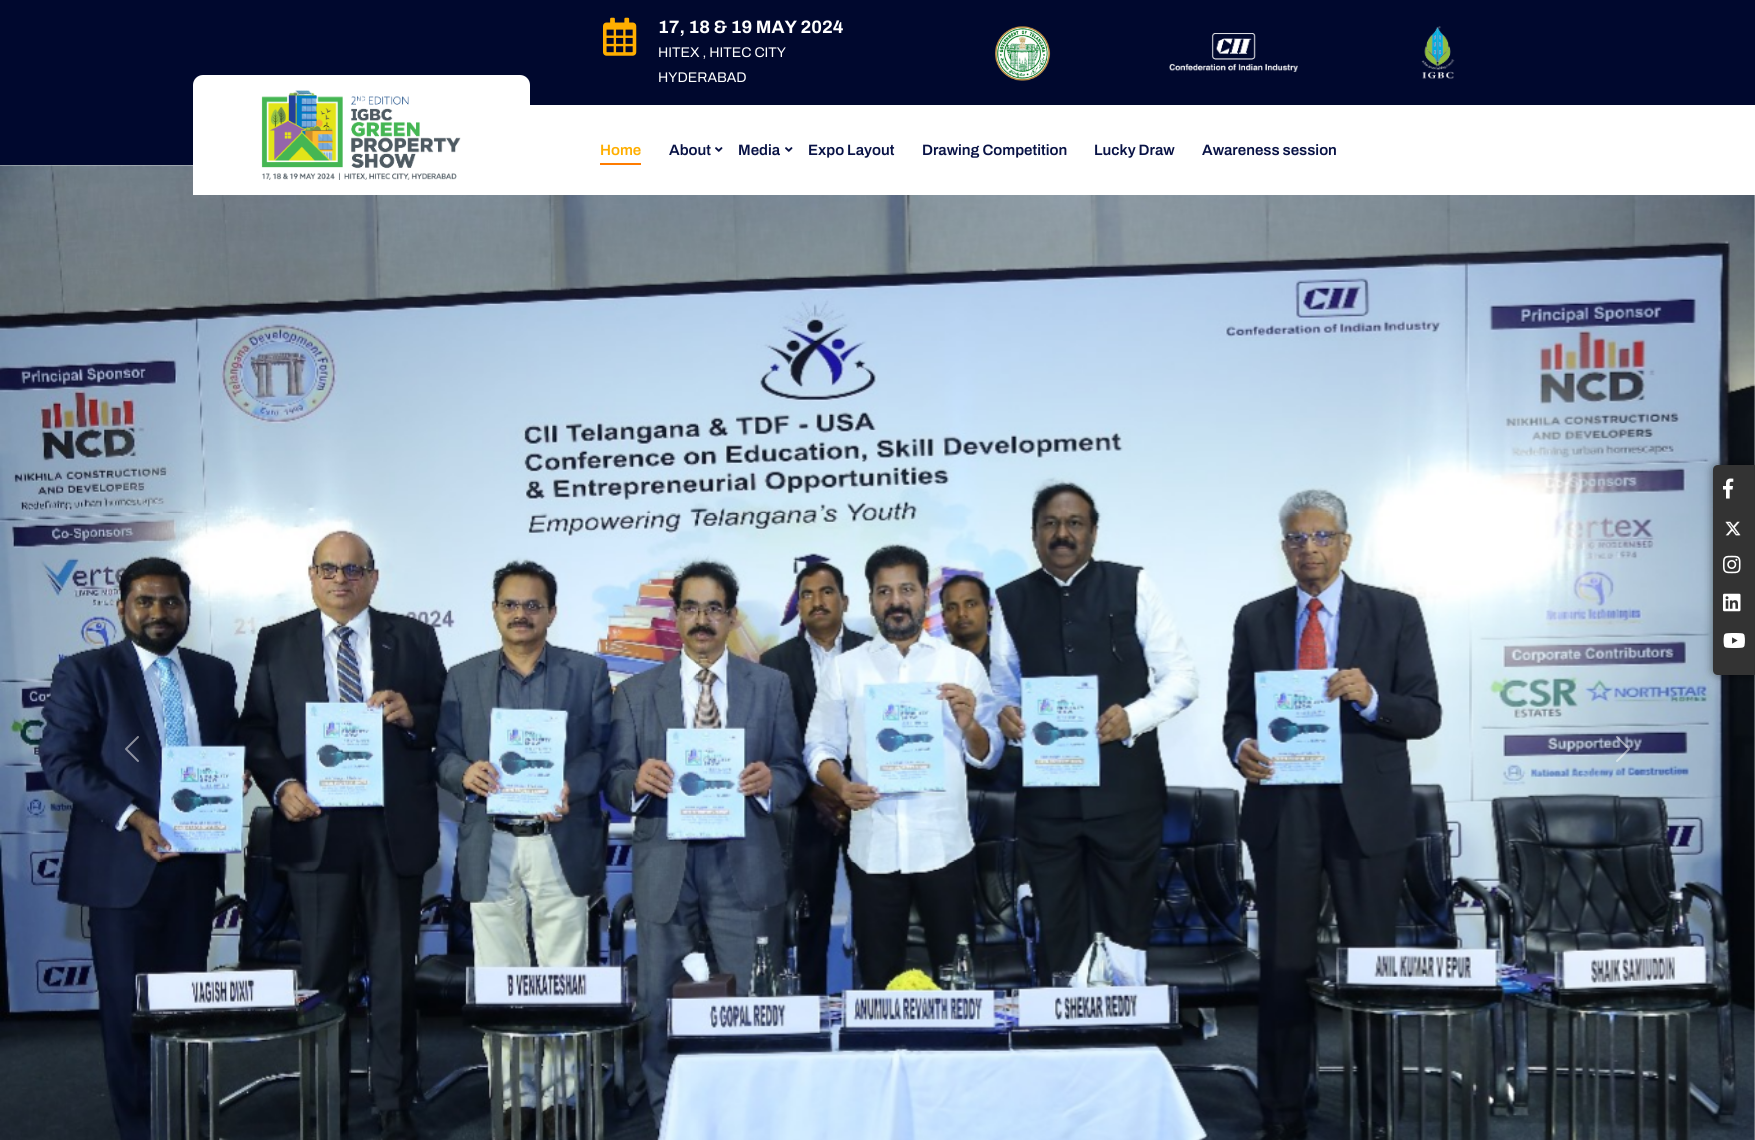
import math
import cairo



def rounded_rect(context, x, y, w, h, r):
    context.new_sub_path()
    for i, (u, v) in enumerate([(x + w - r, y + h - r), (x + r, y + h - r), (x + r, y + r), (x + w - r, y + r)]):
        context.arc(u, v, r, i * math.pi / 2, (i + 1) * math.pi / 2)
    context.close_path()


def draw_shadow(context, x, y, w, h, r, blur, alpha):
    context.push_group_with_content(cairo.Content.ALPHA)
    context.set_operator(cairo.Operator.SOURCE)
    for i in range(15, -16, -2):
        e = blur * i / 6
        if min(w, h) + 2 * e > 0:
            context.set_source_rgba(0, 0, 0, alpha * math.erfc((i - 1) / 8.5) / 2)
            rounded_rect(context, x - e, y - e, w + 2 * e, h + 2 * e, max(0, min(r + e + blur * .6, min(w, h) / 2 + e)))
            context.fill()
    context.mask(context.pop_group())


def draw_image(context, path, x, y, w, h):
    context.save()
    context.set_source_surface(cairo.ImageSurface.create_from_png(path), x, y)
    context.rectangle(x, y, w, h)
    context.fill()
    context.restore()


def draw(context):
    context.set_source_rgb(1, 1, 1)
    context.paint()
    context.set_source_rgb(0, 8 / 255, 46 / 255)
    context.rectangle(0, 0, 1755, 165)
    context.fill()
    draw_image(context, "images/1.png", 603, 17, 34, 39)
    draw_image(context, "images/2.png", 995, 26, 56, 55)
    draw_image(context, "images/3.png", 1169, 33, 129, 39)
    draw_image(context, "images/4.png", 1421, 26, 34, 53)
    draw_image(context, "images/7.png", 0, 165, 1755, 975)
    context.set_source_rgb(1, 1, 1)
    context.rectangle(193, 105, 1562, 90)
    context.fill()
    context.new_path()
    context.move_to(203, 75)
    context.line_to(520, 75)
    context.curve_to(525.5, 75, 530, 79.5, 530, 85)
    context.line_to(530, 195)
    context.line_to(233, 195)
    context.curve_to(211, 195, 193, 177, 193, 155)
    context.line_to(193, 85)
    context.curve_to(193, 79.5, 197.5, 75, 203, 75)
    context.close_path()
    context.fill()
    draw_image(context, "images/5.png", 261, 90, 200, 90)
    context.set_source_rgb(1, 124 / 255, 0)
    context.rectangle(600, 163, 41, 2)
    context.fill()
    draw_image(context, "images/6.png", 715, 147, 8, 5)
    draw_image(context, "images/6.png", 785, 147, 8, 5)
    draw_image(context, "images/8.png", 125, 736, 14, 26)
    draw_image(context, "images/9.png", 1616, 736, 14, 26)
    context.set_source_rgb(0, 0, 0)
    draw_shadow(context, 1713, 465, 42, 210, 5, 5, 0.5)
    context.set_source_rgb(51 / 255, 51 / 255, 51 / 255)
    context.new_path()
    context.move_to(1718, 465)
    context.line_to(1755, 465)
    context.line_to(1755, 675)
    context.line_to(1718, 675)
    context.curve_to(1715, 675, 1713, 673, 1713, 670)
    context.line_to(1713, 470)
    context.curve_to(1713, 467, 1715, 465, 1718, 465)
    context.close_path()
    context.fill()
    draw_image(context, "images/10.png", 1723, 478, 11, 21)
    draw_image(context, "images/11.png", 1725, 521, 16, 15)
    draw_image(context, "images/12.png", 1723, 555, 18, 19)
    draw_image(context, "images/13.png", 1723, 593, 18, 19)
    draw_image(context, "images/14.png", 1723, 633, 22, 15)
    context.select_font_face("Archivo", cairo.FontSlant.NORMAL, cairo.FontWeight.BOLD)
    context.set_font_size(18)
    context.set_source_rgb(1, 1, 1)
    context.move_to(658, 33)
    context.show_text("17, 18 & 19 MAY 2024")
    context.select_font_face("Archivo")
    context.set_font_size(14)
    context.move_to(658, 57)
    context.show_text("HITEX , HITEC CITY")
    context.move_to(658, 82)
    context.show_text("HYDERABAD")
    context.select_font_face("Archivo SemiBold")
    context.set_font_size(15)
    context.set_source_rgb(1, 174 / 255, 0)
    context.move_to(600, 155)
    context.show_text("Home")
    context.set_source_rgb(8 / 255, 18 / 255, 69 / 255)
    context.move_to(669, 155)
    context.show_text("About")
    context.move_to(738, 155)
    context.show_text("Media")
    context.move_to(808, 155)
    context.show_text("Expo Layout")
    context.move_to(922, 155)
    context.show_text("Drawing Competition")
    context.move_to(1094, 155)
    context.show_text("Lucky Draw")
    context.move_to(1202, 155)
    context.show_text("Awareness session")


surface = cairo.ImageSurface(cairo.Format.RGB24, 1755, 1140)
context = cairo.Context(surface)
options = cairo.FontOptions()
options.set_hint_metrics(cairo.HintMetrics.OFF)
options.set_hint_style(cairo.HintStyle.NONE)
context.set_font_options(options)
context.set_miter_limit(4)
draw(context)
surface.write_to_png("out.png")
